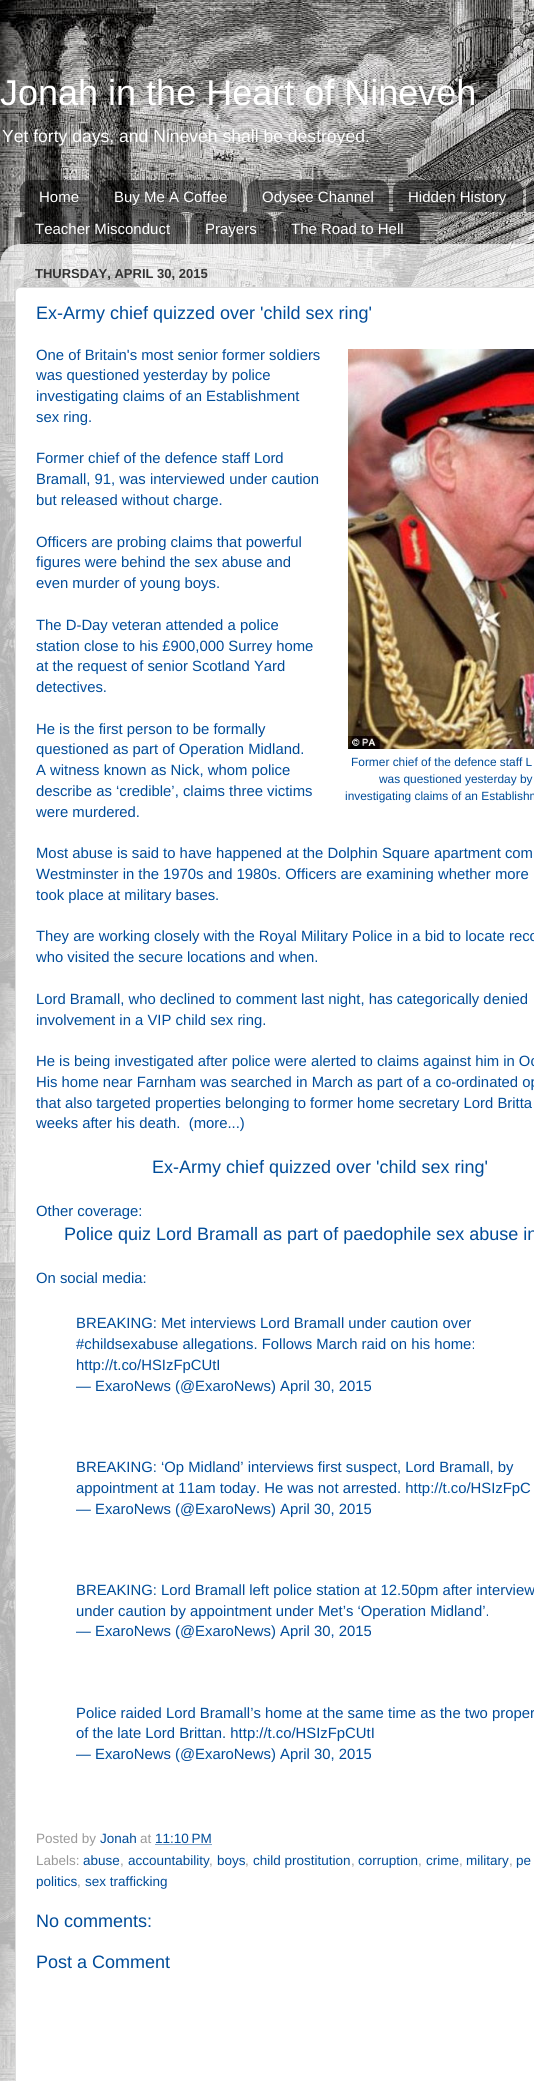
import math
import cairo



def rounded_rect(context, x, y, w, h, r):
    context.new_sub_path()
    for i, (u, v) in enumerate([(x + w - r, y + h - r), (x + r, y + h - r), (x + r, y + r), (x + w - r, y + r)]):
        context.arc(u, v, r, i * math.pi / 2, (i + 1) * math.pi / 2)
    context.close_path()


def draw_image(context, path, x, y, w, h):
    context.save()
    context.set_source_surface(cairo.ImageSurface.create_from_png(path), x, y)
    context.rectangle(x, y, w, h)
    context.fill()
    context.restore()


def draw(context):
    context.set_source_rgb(1, 1, 1)
    context.paint()
    draw_image(context, "images/1.png", 0, 0, 534, 2081)
    draw_image(context, "images/2.png", 20, 180, 75, 32)
    draw_image(context, "images/3.png", 99, 180, 144, 32)
    draw_image(context, "images/4.png", 247, 180, 142, 32)
    draw_image(context, "images/5.png", 393, 180, 130, 32)
    draw_image(context, "images/6.png", 526, 180, 8, 32)
    draw_image(context, "images/7.png", 20, 212, 166, 32)
    draw_image(context, "images/8.png", 190, 212, 83, 32)
    draw_image(context, "images/9.png", 276, 212, 144, 32)
    draw_image(context, "images/10.png", 0, 244, 534, 1837)
    context.set_source_rgb(1, 1, 1)
    rounded_rect(context, 15.5, 287.5, 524, 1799, 4.5)
    context.fill_preserve()
    context.set_source_rgb(221 / 255, 221 / 255, 221 / 255)
    context.set_line_width(1)
    context.stroke()
    draw_image(context, "images/11.png", 348, 349, 186, 400)
    context.new_path()
    context.move_to(155.5, 1844.5)
    context.line_to(212, 1844.5)
    context.set_source_rgb(0, 76 / 255, 153 / 255)
    context.set_dash([1, 1])
    context.stroke()
    context.select_font_face("Liberation Sans")
    context.set_font_size(36)
    context.set_source_rgb(1, 1, 1)
    context.move_to(0, 105)
    context.show_text("Jonah in the Heart of Nineveh")
    context.set_font_size(17.55)
    context.move_to(2, 142)
    context.show_text("Yet forty days, and Nineveh shall be destroyed.")
    context.set_font_size(15)
    context.move_to(39, 202)
    context.show_text("Home")
    context.move_to(114, 202)
    context.show_text("Buy Me A Coffee")
    context.move_to(262, 202)
    context.show_text("Odysee Channel")
    context.move_to(408, 202)
    context.show_text("Hidden History")
    context.move_to(35, 234)
    context.show_text("Teacher Misconduct")
    context.move_to(205, 234)
    context.show_text("Prayers")
    context.move_to(291, 234)
    context.show_text("The Road to Hell")
    context.select_font_face("Liberation Sans", cairo.FontSlant.NORMAL, cairo.FontWeight.BOLD)
    context.set_font_size(13)
    context.set_source_rgb(51 / 255, 51 / 255, 51 / 255)
    context.move_to(35, 278)
    context.show_text("THURSDAY, APRIL 30, 2015")
    context.select_font_face("Liberation Sans")
    context.set_font_size(18)
    context.set_source_rgb(0, 76 / 255, 153 / 255)
    context.move_to(36, 319)
    context.show_text("Ex-Army chief quizzed over 'child sex ring'")
    context.set_font_size(14.85)
    context.move_to(36, 360)
    context.show_text("One of Britain's most senior former soldiers")
    context.move_to(36, 380)
    context.show_text("was questioned yesterday by police")
    context.move_to(36, 401)
    context.show_text("investigating claims of an Establishment")
    context.move_to(36, 422)
    context.show_text("sex ring.")
    context.move_to(36, 463)
    context.show_text("Former chief of the defence staff Lord")
    context.move_to(36, 484)
    context.show_text("Bramall, 91, was interviewed under caution")
    context.move_to(36, 505)
    context.show_text("but released without charge.")
    context.move_to(36, 547)
    context.show_text("Officers are probing claims that powerful")
    context.move_to(36, 567)
    context.show_text("figures were behind the sex abuse and")
    context.move_to(36, 588)
    context.show_text("even murder of young boys.")
    context.move_to(36, 630)
    context.show_text("The D-Day veteran attended a police")
    context.move_to(36, 651)
    context.show_text("station close to his £900,000 Surrey home")
    context.move_to(36, 671)
    context.show_text("at the request of senior Scotland Yard")
    context.move_to(36, 692)
    context.show_text("detectives.")
    context.move_to(36, 734)
    context.show_text("He is the first person to be formally")
    context.move_to(36, 754)
    context.show_text("questioned as part of Operation Midland.")
    context.move_to(36, 775)
    context.show_text("A witness known as Nick, whom police")
    context.set_font_size(11.9)
    context.move_to(351, 766)
    context.show_text("Former chief of the defence staff L")
    context.move_to(379, 783)
    context.show_text("was questioned yesterday by")
    context.move_to(345, 800)
    context.show_text("investigating claims of an Establishm")
    context.set_font_size(14.85)
    context.move_to(36, 796)
    context.show_text("describe as ‘credible’, claims three victims")
    context.move_to(36, 817)
    context.show_text("were murdered.")
    context.move_to(36, 858)
    context.show_text("Most abuse is said to have happened at the Dolphin Square apartment com")
    context.move_to(36, 879)
    context.show_text("Westminster in the 1970s and 1980s. Officers are examining whether more")
    context.move_to(36, 900)
    context.show_text("took place at military bases.")
    context.move_to(36, 941)
    context.show_text("They are working closely with the Royal Military Police in a bid to locate reco")
    context.move_to(36, 962)
    context.show_text("who visited the secure locations and when.")
    context.move_to(36, 1004)
    context.show_text("Lord Bramall, who declined to comment last night, has categorically denied")
    context.move_to(36, 1025)
    context.show_text("involvement in a VIP child sex ring.")
    context.move_to(36, 1066)
    context.show_text("He is being investigated after police were alerted to claims against him in Oc")
    context.move_to(36, 1087)
    context.show_text("His home near Farnham was searched in March as part of a co-ordinated op")
    context.move_to(36, 1108)
    context.show_text("that also targeted properties belonging to former home secretary Lord Britta")
    context.move_to(36, 1128)
    context.show_text("weeks after his death.  (more...)")
    context.set_font_size(18)
    context.move_to(152, 1173)
    context.show_text("Ex-Army chief quizzed over 'child sex ring'")
    context.set_font_size(14.85)
    context.move_to(36, 1216)
    context.show_text("Other coverage:")
    context.set_font_size(18)
    context.move_to(64, 1240)
    context.show_text("Police quiz Lord Bramall as part of paedophile sex abuse in")
    context.set_font_size(14.85)
    context.move_to(36, 1283)
    context.show_text("On social media:")
    context.move_to(76, 1328)
    context.show_text("BREAKING: Met interviews Lord Bramall under caution over")
    context.move_to(76, 1349)
    context.show_text("#childsexabuse allegations. Follows March raid on his home:")
    context.move_to(76, 1370)
    context.show_text("http://t.co/HSIzFpCUtI")
    context.move_to(76, 1391)
    context.show_text("— ExaroNews (@ExaroNews) April 30, 2015")
    context.move_to(76, 1472)
    context.show_text("BREAKING: ‘Op Midland’ interviews first suspect, Lord Bramall, by")
    context.move_to(76, 1493)
    context.show_text("appointment at 11am today. He was not arrested. http://t.co/HSIzFpC")
    context.move_to(76, 1514)
    context.show_text("— ExaroNews (@ExaroNews) April 30, 2015")
    context.move_to(76, 1595)
    context.show_text("BREAKING: Lord Bramall left police station at 12.50pm after interview")
    context.move_to(76, 1616)
    context.show_text("under caution by appointment under Met’s ‘Operation Midland’.")
    context.move_to(76, 1636)
    context.show_text("— ExaroNews (@ExaroNews) April 30, 2015")
    context.move_to(76, 1718)
    context.show_text("Police raided Lord Bramall’s home at the same time as the two proper")
    context.move_to(76, 1738)
    context.show_text("of the late Lord Brittan. http://t.co/HSIzFpCUtI")
    context.move_to(76, 1759)
    context.show_text("— ExaroNews (@ExaroNews) April 30, 2015")
    context.set_font_size(13.5)
    context.set_source_rgb(153 / 255, 153 / 255, 153 / 255)
    context.move_to(36, 1843)
    context.show_text("Posted by")
    context.set_source_rgb(0, 76 / 255, 153 / 255)
    context.move_to(100, 1843)
    context.show_text("Jonah")
    context.set_source_rgb(153 / 255, 153 / 255, 153 / 255)
    context.move_to(140, 1843)
    context.show_text("at")
    context.set_source_rgb(0, 76 / 255, 153 / 255)
    context.move_to(155, 1843)
    context.show_text("11:10 PM")
    context.set_source_rgb(153 / 255, 153 / 255, 153 / 255)
    context.move_to(36, 1865)
    context.show_text("Labels:")
    context.set_source_rgb(0, 76 / 255, 153 / 255)
    context.move_to(83, 1865)
    context.show_text("abuse")
    context.set_source_rgb(153 / 255, 153 / 255, 153 / 255)
    context.move_to(120, 1865)
    context.show_text(",")
    context.set_source_rgb(0, 76 / 255, 153 / 255)
    context.move_to(128, 1865)
    context.show_text("accountability")
    context.set_source_rgb(153 / 255, 153 / 255, 153 / 255)
    context.move_to(209, 1865)
    context.show_text(",")
    context.set_source_rgb(0, 76 / 255, 153 / 255)
    context.move_to(217, 1865)
    context.show_text("boys")
    context.set_source_rgb(153 / 255, 153 / 255, 153 / 255)
    context.move_to(245, 1865)
    context.show_text(",")
    context.set_source_rgb(0, 76 / 255, 153 / 255)
    context.move_to(253, 1865)
    context.show_text("child prostitution")
    context.set_source_rgb(153 / 255, 153 / 255, 153 / 255)
    context.move_to(351, 1865)
    context.show_text(",")
    context.set_source_rgb(0, 76 / 255, 153 / 255)
    context.move_to(358, 1865)
    context.show_text("corruption")
    context.set_source_rgb(153 / 255, 153 / 255, 153 / 255)
    context.move_to(418, 1865)
    context.show_text(",")
    context.set_source_rgb(0, 76 / 255, 153 / 255)
    context.move_to(426, 1865)
    context.show_text("crime")
    context.set_source_rgb(153 / 255, 153 / 255, 153 / 255)
    context.move_to(459, 1865)
    context.show_text(",")
    context.set_source_rgb(0, 76 / 255, 153 / 255)
    context.move_to(466, 1865)
    context.show_text("military")
    context.set_source_rgb(153 / 255, 153 / 255, 153 / 255)
    context.move_to(509, 1865)
    context.show_text(",")
    context.set_source_rgb(0, 76 / 255, 153 / 255)
    context.move_to(516, 1865)
    context.show_text("pe")
    context.move_to(36, 1886)
    context.show_text("politics")
    context.set_source_rgb(153 / 255, 153 / 255, 153 / 255)
    context.move_to(77, 1886)
    context.show_text(",")
    context.set_source_rgb(0, 76 / 255, 153 / 255)
    context.move_to(85, 1886)
    context.show_text("sex trafficking")
    context.set_font_size(18)
    context.move_to(36, 1927)
    context.show_text("No comments:")
    context.move_to(36, 1968)
    context.show_text("Post a Comment")


surface = cairo.ImageSurface(cairo.Format.RGB24, 534, 2081)
context = cairo.Context(surface)
options = cairo.FontOptions()
options.set_hint_metrics(cairo.HintMetrics.OFF)
options.set_hint_style(cairo.HintStyle.NONE)
context.set_font_options(options)
context.set_miter_limit(4)
draw(context)
surface.write_to_png("out.png")
